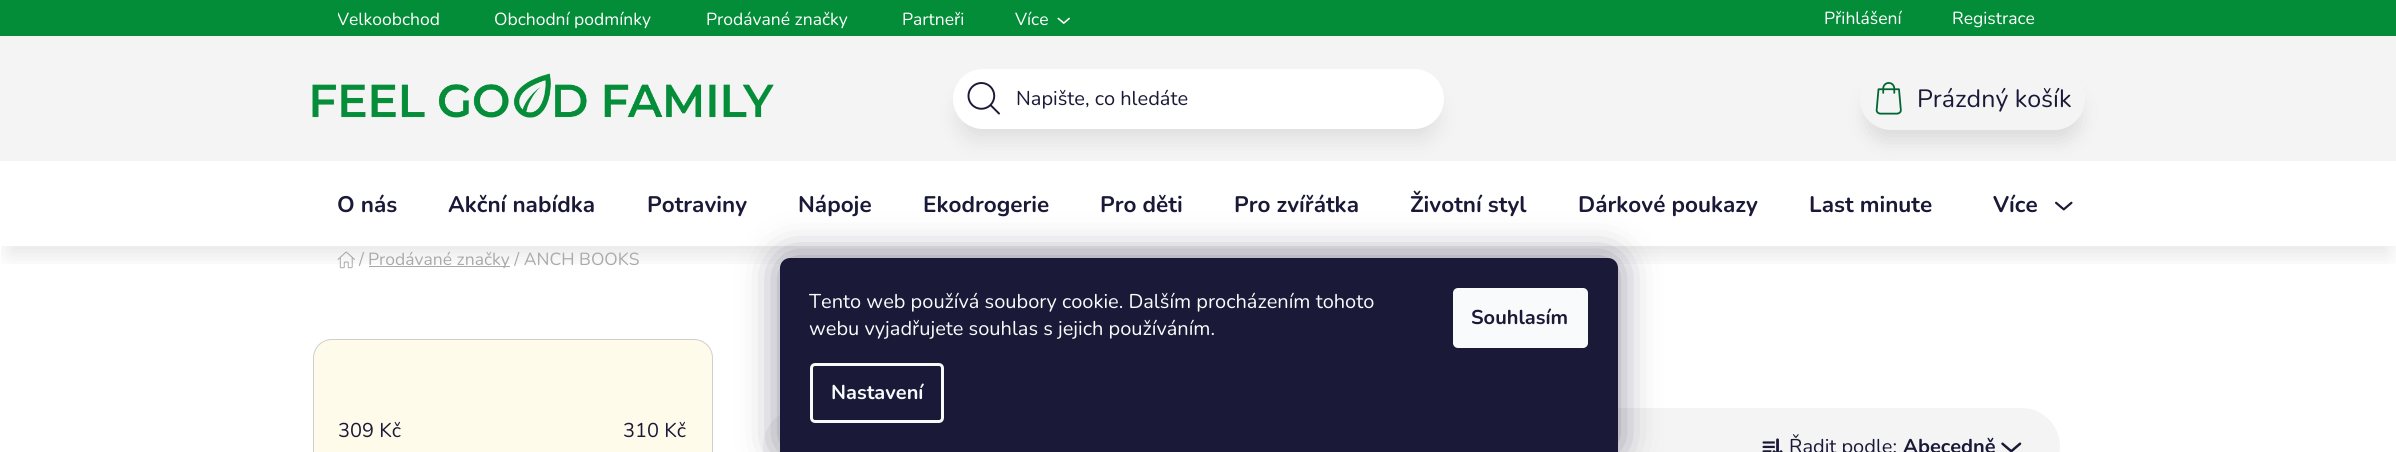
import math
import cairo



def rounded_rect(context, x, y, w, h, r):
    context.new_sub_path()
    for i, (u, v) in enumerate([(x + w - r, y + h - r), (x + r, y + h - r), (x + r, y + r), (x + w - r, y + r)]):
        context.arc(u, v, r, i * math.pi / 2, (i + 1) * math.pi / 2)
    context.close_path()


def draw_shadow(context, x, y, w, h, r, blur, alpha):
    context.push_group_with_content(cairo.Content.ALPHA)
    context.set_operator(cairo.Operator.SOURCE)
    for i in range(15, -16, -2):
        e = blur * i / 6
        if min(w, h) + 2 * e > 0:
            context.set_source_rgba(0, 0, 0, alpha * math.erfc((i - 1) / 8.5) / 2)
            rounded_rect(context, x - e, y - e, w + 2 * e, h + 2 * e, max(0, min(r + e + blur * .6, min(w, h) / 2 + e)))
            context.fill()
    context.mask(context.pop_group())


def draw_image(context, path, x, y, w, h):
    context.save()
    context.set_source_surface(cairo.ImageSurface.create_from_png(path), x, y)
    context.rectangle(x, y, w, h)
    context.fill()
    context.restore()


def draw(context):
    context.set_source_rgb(1, 1, 1)
    context.paint()
    context.set_source_rgb(4 / 255, 141 / 255, 56 / 255)
    context.rectangle(0, 0, 2396, 36)
    context.fill()
    draw_image(context, "images/1.png", 1057, 17, 13, 7)
    context.set_source_rgb(244 / 255, 244 / 255, 244 / 255)
    context.rectangle(0, 36, 2396, 125)
    context.fill()
    draw_image(context, "images/2.png", 312, 73, 462, 45)
    context.set_source_rgb(0, 0, 0)
    draw_shadow(context, 960, 93, 476, 45, 22.5, 11, 0.1)
    context.set_source_rgb(1, 1, 1)
    rounded_rect(context, 953, 69, 491, 60, 30)
    context.fill()
    draw_image(context, "images/3.png", 967, 82, 33, 33)
    context.save()
    context.set_fill_rule(cairo.FillRule.EVEN_ODD)
    context.new_path()
    context.move_to(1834, 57)
    context.line_to(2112, 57)
    context.line_to(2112, 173)
    context.line_to(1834, 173)
    context.close_path()
    context.move_to(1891, 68)
    context.line_to(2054, 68)
    context.curve_to(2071, 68, 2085, 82, 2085, 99)
    context.curve_to(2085, 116, 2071, 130, 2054, 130)
    context.line_to(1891, 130)
    context.curve_to(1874, 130, 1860, 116, 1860, 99)
    context.curve_to(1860, 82, 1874, 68, 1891, 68)
    context.close_path()
    context.clip()
    context.set_source_rgb(0, 0, 0)
    draw_shadow(context, 1868, 91, 210, 48, 24, 11, 0.12)
    context.restore()
    draw_image(context, "images/4.png", 1875, 82, 27, 33)
    draw_image(context, "images/6.png", 337, 251, 18, 18)
    context.set_source_rgb(170 / 255, 170 / 255, 170 / 255)
    context.rectangle(369, 266, 141, 1)
    context.fill()
    context.save()
    context.rectangle(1, 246, 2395, 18)
    context.clip()
    context.set_source_rgb(0, 0, 0)
    draw_shadow(context, 8, 185, 2381, 70, 0, 11, 0.1)
    context.restore()
    draw_image(context, "images/5.png", 2055, 201, 18, 10)
    context.set_source_rgb(1, 251 / 255, 235 / 255)
    rounded_rect(context, 313.5, 339.5, 399, 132, 18.5)
    context.fill_preserve()
    context.set_source_rgb(207 / 255, 207 / 255, 207 / 255)
    context.set_line_width(1)
    context.stroke()
    context.set_source_rgb(244 / 255, 244 / 255, 244 / 255)
    rounded_rect(context, 763, 408, 1297, 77, 38.5)
    context.fill()
    draw_image(context, "images/7.png", 1762, 438, 21, 14)
    draw_image(context, "images/8.png", 2001, 442, 21, 10)
    context.set_source_rgb(27 / 255, 25 / 255, 57 / 255)
    draw_shadow(context, 780, 258, 838, 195, 10, 19, 0.5)
    context.set_source_rgb(26 / 255, 25 / 255, 55 / 255)
    context.new_path()
    context.move_to(790, 258)
    context.line_to(1608, 258)
    context.curve_to(1613.5, 258, 1618, 262.5, 1618, 268)
    context.line_to(1618, 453)
    context.line_to(780, 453)
    context.line_to(780, 268)
    context.curve_to(780, 262.5, 784.5, 258, 790, 258)
    context.close_path()
    context.fill()
    rounded_rect(context, 811.5, 364.5, 131, 57, 3.5)
    context.set_source_rgb(248 / 255, 250 / 255, 251 / 255)
    context.set_line_width(3)
    context.stroke()
    rounded_rect(context, 1453, 288, 135, 60, 5)
    context.fill()
    context.save()
    context.rectangle(338, 3, 861, 31)
    context.clip()
    context.select_font_face("Nunito")
    context.set_font_size(17.5)
    context.set_source_rgb(1, 1, 1)
    context.move_to(337, 25)
    context.show_text("Velkoobchod")
    context.restore()
    context.select_font_face("Nunito")
    context.set_font_size(17.5)
    context.set_source_rgb(1, 1, 1)
    context.move_to(494, 25)
    context.show_text("Obchodní podmínky")
    context.move_to(706, 25)
    context.show_text("Prodávané značky")
    context.move_to(902, 25)
    context.show_text("Partneři")
    context.move_to(1015, 25)
    context.show_text("Více")
    context.move_to(1824, 24)
    context.show_text("Přihlášení")
    context.move_to(1952, 24)
    context.show_text("Registrace")
    context.set_font_size(20)
    context.set_source_rgb(26 / 255, 25 / 255, 55 / 255)
    context.move_to(1016, 105)
    context.show_text("Napište, co hledáte")
    context.set_font_size(25)
    context.move_to(1917, 107)
    context.show_text("Prázdný košík")
    context.select_font_face("Nunito", cairo.FontSlant.NORMAL, cairo.FontWeight.BOLD)
    context.set_font_size(22.5)
    context.move_to(337, 212)
    context.show_text("O nás")
    context.move_to(448, 212)
    context.show_text("Akční nabídka")
    context.move_to(647, 212)
    context.show_text("Potraviny")
    context.move_to(798, 212)
    context.show_text("Nápoje")
    context.move_to(923, 212)
    context.show_text("Ekodrogerie")
    context.move_to(1100, 212)
    context.show_text("Pro děti")
    context.move_to(1234, 212)
    context.show_text("Pro zvířátka")
    context.move_to(1410, 212)
    context.show_text("Životní styl")
    context.move_to(1578, 212)
    context.show_text("Dárkové poukazy")
    context.move_to(1809, 212)
    context.show_text("Last minute")
    context.move_to(1993, 212)
    context.show_text("Více")
    context.select_font_face("Nunito")
    context.set_font_size(17.5)
    context.set_source_rgb(170 / 255, 170 / 255, 170 / 255)
    context.move_to(359, 265)
    context.show_text("/")
    context.move_to(368, 265)
    context.show_text("Prodávané značky / ANCH BOOKS")
    context.set_font_size(20)
    context.set_source_rgb(26 / 255, 25 / 255, 55 / 255)
    context.move_to(338, 437)
    context.show_text("309 Kč")
    context.move_to(623, 437)
    context.show_text("310 Kč")
    context.move_to(1789, 453)
    context.show_text("Řadit podle:")
    context.select_font_face("Nunito", cairo.FontSlant.NORMAL, cairo.FontWeight.BOLD)
    context.move_to(1903, 453)
    context.show_text("Abecedně")
    context.select_font_face("Nunito")
    context.set_source_rgb(248 / 255, 250 / 255, 251 / 255)
    context.move_to(809, 308)
    context.show_text("Tento web používá soubory cookie. Dalším procházením tohoto")
    context.move_to(809, 335)
    context.show_text("webu vyjadřujete souhlas s jejich používáním.")
    context.select_font_face("Nunito", cairo.FontSlant.NORMAL, cairo.FontWeight.BOLD)
    context.move_to(831, 399)
    context.show_text("Nastavení")
    context.set_source_rgb(26 / 255, 25 / 255, 55 / 255)
    context.move_to(1471, 324)
    context.show_text("Souhlasím")


surface = cairo.ImageSurface(cairo.Format.RGB24, 2396, 452)
context = cairo.Context(surface)
options = cairo.FontOptions()
options.set_hint_metrics(cairo.HintMetrics.OFF)
options.set_hint_style(cairo.HintStyle.NONE)
context.set_font_options(options)
context.set_miter_limit(4)
draw(context)
surface.write_to_png("out.png")
